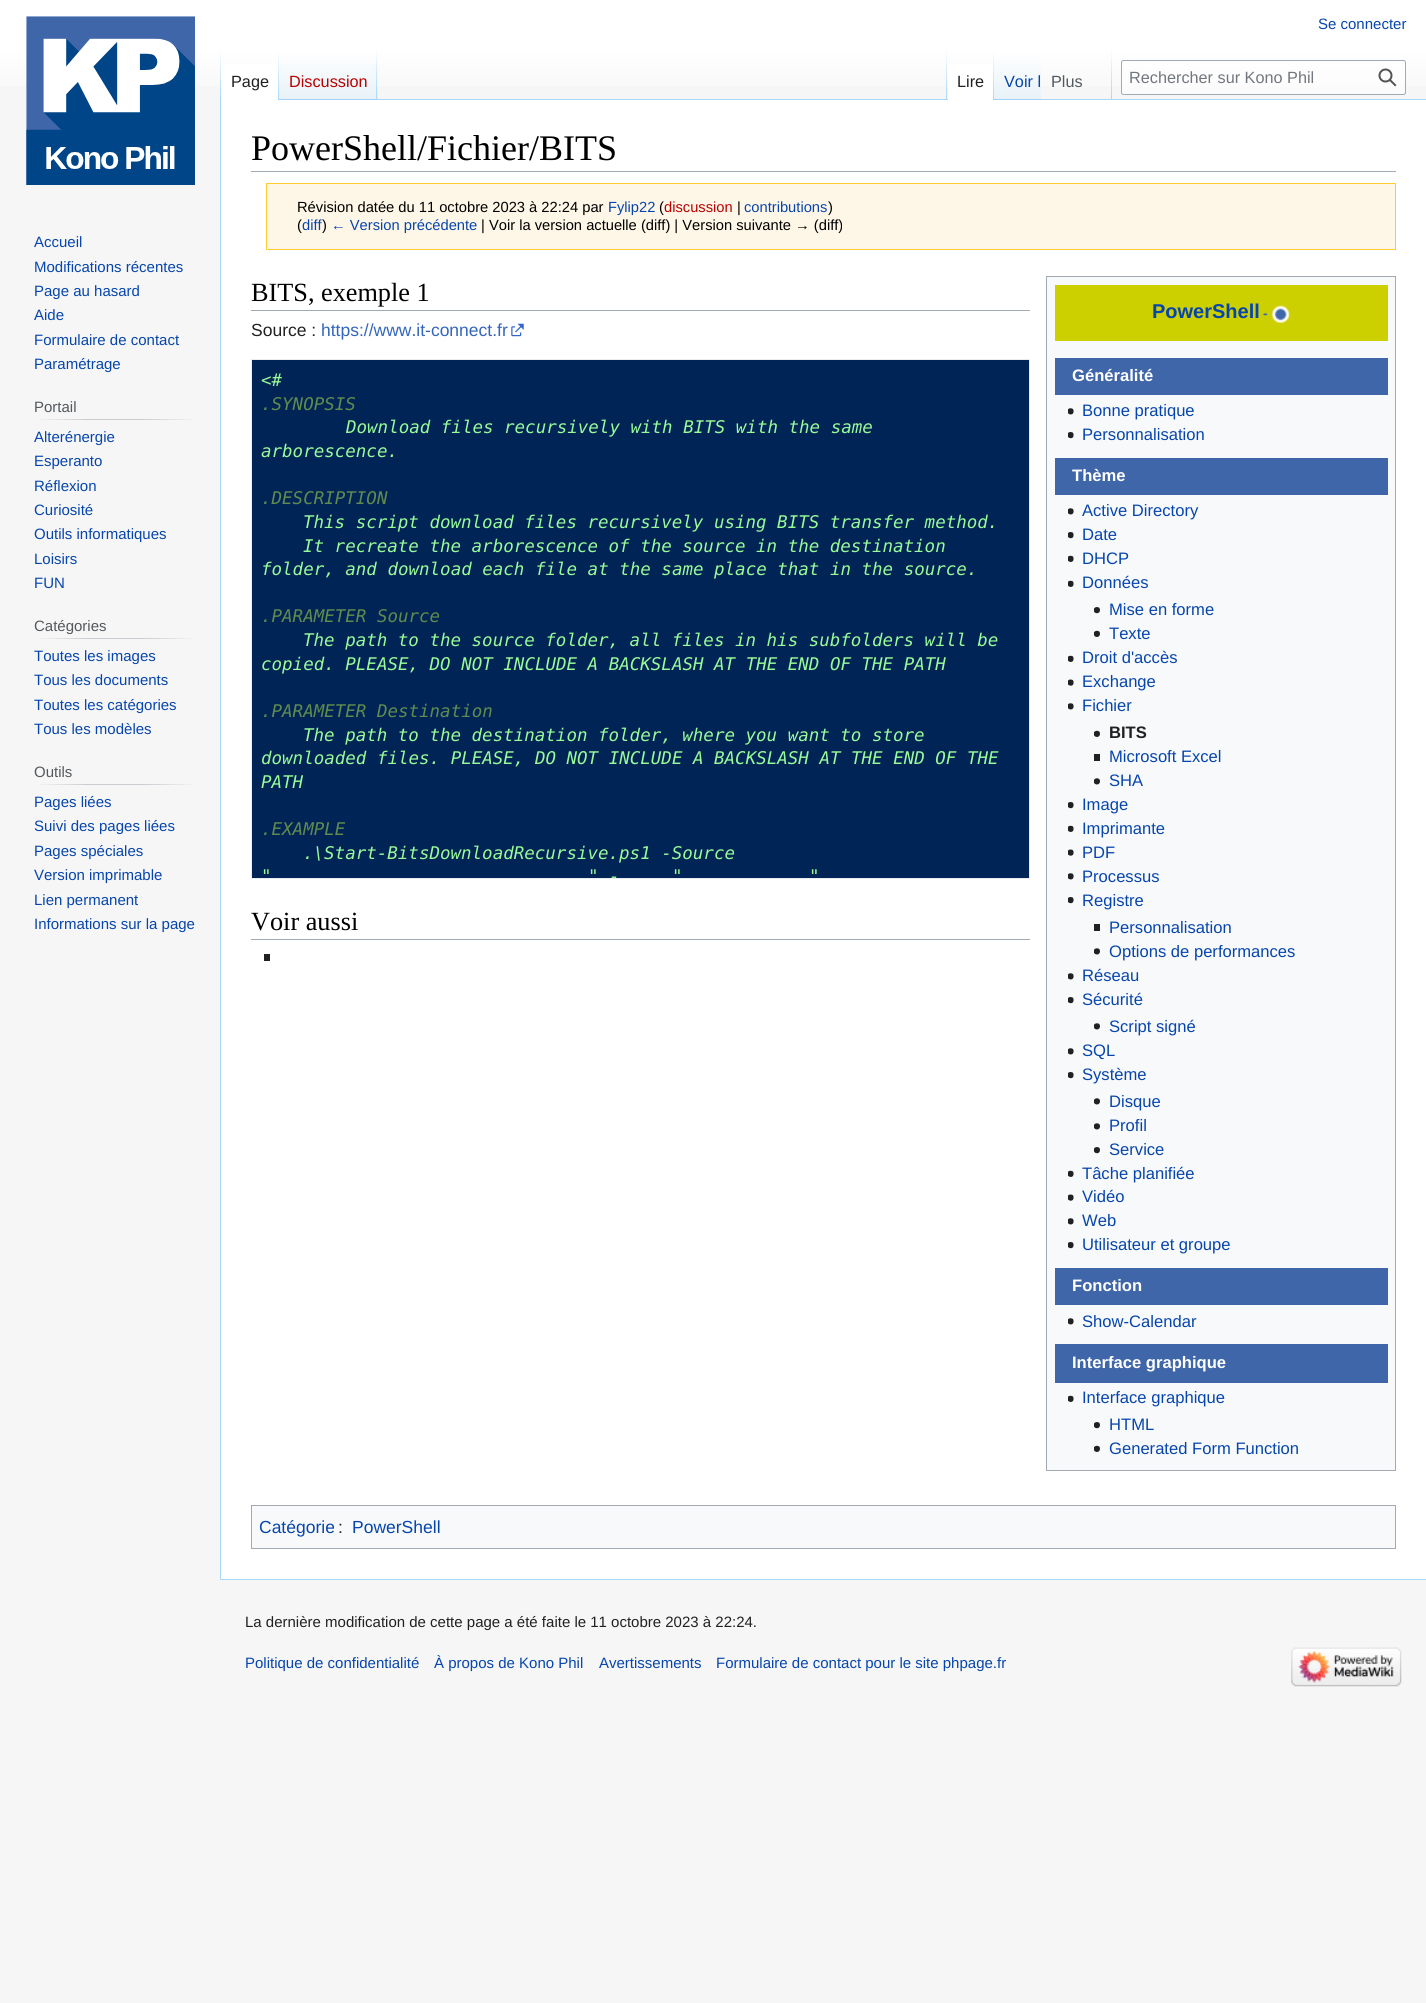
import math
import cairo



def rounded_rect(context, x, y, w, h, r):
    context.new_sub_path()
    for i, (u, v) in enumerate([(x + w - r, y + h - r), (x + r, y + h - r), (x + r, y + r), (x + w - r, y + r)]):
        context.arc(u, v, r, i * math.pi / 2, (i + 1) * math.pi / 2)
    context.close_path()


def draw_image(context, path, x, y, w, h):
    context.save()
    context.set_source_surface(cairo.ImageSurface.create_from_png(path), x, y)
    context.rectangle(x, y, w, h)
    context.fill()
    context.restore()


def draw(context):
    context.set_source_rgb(246 / 255, 246 / 255, 246 / 255)
    context.paint()
    gradient = cairo.LinearGradient(713, 0, 713, 100)
    gradient.add_color_stop_rgba(0.5, 1, 1, 1, 1)
    gradient.add_color_stop_rgba(1, 246 / 255, 246 / 255, 246 / 255, 1)
    context.set_source(gradient)
    context.rectangle(0, 0, 1426, 86)
    context.fill()
    context.set_source_rgb(167 / 255, 215 / 255, 249 / 255)
    context.rectangle(220, 1579, 1206, 1)
    context.fill()
    context.rectangle(220, 99, 1, 1481)
    context.fill()
    gradient = cairo.LinearGradient(221, 50, 221, 100)
    gradient.add_color_stop_rgba(0, 167 / 255, 215 / 255, 249 / 255, 0)
    gradient.add_color_stop_rgba(1, 167 / 255, 215 / 255, 249 / 255, 1)
    context.set_source(gradient)
    context.rectangle(220, 50, 1, 50)
    context.fill()
    context.set_source_rgb(1, 1, 1)
    context.rectangle(221, 64, 57, 36)
    context.fill()
    gradient = cairo.LinearGradient(278, 50, 278, 100)
    gradient.add_color_stop_rgba(0, 1, 1, 1, 1)
    gradient.add_color_stop_rgba(1, 167 / 255, 215 / 255, 249 / 255, 1)
    context.set_source(gradient)
    context.rectangle(278, 50, 1, 50)
    context.fill()
    gradient = cairo.LinearGradient(328, 100, 328, 50)
    gradient.add_color_stop_rgba(0, 119 / 255, 193 / 255, 246 / 255, 1)
    gradient.add_color_stop_rgba(0.03, 232 / 255, 242 / 255, 248 / 255, 1)
    gradient.add_color_stop_rgba(1, 1, 1, 1, 1)
    context.set_source(gradient)
    context.rectangle(279, 57, 99, 43)
    context.fill()
    gradient = cairo.LinearGradient(377, 50, 377, 100)
    gradient.add_color_stop_rgba(0, 167 / 255, 215 / 255, 249 / 255, 0)
    gradient.add_color_stop_rgba(1, 167 / 255, 215 / 255, 249 / 255, 1)
    context.set_source(gradient)
    context.rectangle(376, 50, 1, 50)
    context.fill()
    context.set_source_rgb(167 / 255, 215 / 255, 249 / 255)
    context.rectangle(378, 99, 1048, 1)
    context.fill()
    gradient = cairo.LinearGradient(947, 50, 947, 100)
    gradient.add_color_stop_rgba(0, 167 / 255, 215 / 255, 249 / 255, 0)
    gradient.add_color_stop_rgba(1, 167 / 255, 215 / 255, 249 / 255, 1)
    context.set_source(gradient)
    context.rectangle(946, 50, 1, 50)
    context.fill()
    context.set_source_rgb(1, 1, 1)
    context.rectangle(948, 64, 45, 36)
    context.fill()
    gradient = cairo.LinearGradient(993, 50, 993, 100)
    gradient.add_color_stop_rgba(0, 1, 1, 1, 1)
    gradient.add_color_stop_rgba(1, 167 / 255, 215 / 255, 249 / 255, 1)
    context.set_source(gradient)
    context.rectangle(993, 50, 1, 50)
    context.fill()
    gradient = cairo.LinearGradient(1018, 100, 1018, 50)
    gradient.add_color_stop_rgba(0, 119 / 255, 193 / 255, 246 / 255, 1)
    gradient.add_color_stop_rgba(0.03, 232 / 255, 242 / 255, 248 / 255, 1)
    gradient.add_color_stop_rgba(1, 1, 1, 1, 1)
    context.set_source(gradient)
    context.rectangle(994, 57, 47, 43)
    context.fill()
    gradient = cairo.LinearGradient(1112, 50, 1112, 100)
    gradient.add_color_stop_rgba(0, 167 / 255, 215 / 255, 249 / 255, 0)
    gradient.add_color_stop_rgba(1, 167 / 255, 215 / 255, 249 / 255, 1)
    context.set_source(gradient)
    context.rectangle(1111, 50, 1, 50)
    context.fill()
    context.set_source_rgba(1, 1, 1, 0.5)
    rounded_rect(context, 1121.5, 60.5, 284, 34, 2)
    context.fill_preserve()
    context.set_source_rgb(162 / 255, 169 / 255, 177 / 255)
    context.set_line_width(1)
    context.stroke()
    draw_image(context, "images/1.png", 1378, 68, 19, 19)
    draw_image(context, "images/2.png", 26, 16, 169, 169)
    gradient = cairo.LinearGradient(34, 419, 198, 419)
    gradient.add_color_stop_rgba(0, 246 / 255, 246 / 255, 246 / 255, 1)
    gradient.add_color_stop_rgba(0.33, 200 / 255, 204 / 255, 209 / 255, 1)
    gradient.add_color_stop_rgba(0.66, 200 / 255, 204 / 255, 209 / 255, 1)
    gradient.add_color_stop_rgba(1, 246 / 255, 246 / 255, 246 / 255, 1)
    context.set_source(gradient)
    context.rectangle(34, 419, 164, 1)
    context.fill()
    gradient = cairo.LinearGradient(34, 638, 198, 638)
    gradient.add_color_stop_rgba(0, 246 / 255, 246 / 255, 246 / 255, 1)
    gradient.add_color_stop_rgba(0.33, 200 / 255, 204 / 255, 209 / 255, 1)
    gradient.add_color_stop_rgba(0.66, 200 / 255, 204 / 255, 209 / 255, 1)
    gradient.add_color_stop_rgba(1, 246 / 255, 246 / 255, 246 / 255, 1)
    context.set_source(gradient)
    context.rectangle(34, 638, 164, 1)
    context.fill()
    gradient = cairo.LinearGradient(34, 784, 198, 784)
    gradient.add_color_stop_rgba(0, 246 / 255, 246 / 255, 246 / 255, 1)
    gradient.add_color_stop_rgba(0.33, 200 / 255, 204 / 255, 209 / 255, 1)
    gradient.add_color_stop_rgba(0.66, 200 / 255, 204 / 255, 209 / 255, 1)
    gradient.add_color_stop_rgba(1, 246 / 255, 246 / 255, 246 / 255, 1)
    context.set_source(gradient)
    context.rectangle(34, 784, 164, 1)
    context.fill()
    context.set_source_rgb(1, 1, 1)
    context.rectangle(221, 100, 1205, 1479)
    context.fill()
    context.set_source_rgb(162 / 255, 169 / 255, 177 / 255)
    context.rectangle(251, 171, 1145, 1)
    context.fill()
    context.set_source_rgb(254 / 255, 246 / 255, 231 / 255)
    context.rectangle(266.5, 183.5, 1129, 66)
    context.fill_preserve()
    context.set_source_rgb(1, 204 / 255, 51 / 255)
    context.stroke()
    context.set_source_rgb(162 / 255, 169 / 255, 177 / 255)
    context.rectangle(251, 310, 779, 1)
    context.fill()
    draw_image(context, "images/3.png", 511, 323, 13, 14)
    context.set_source_rgb(248 / 255, 249 / 255, 250 / 255)
    context.rectangle(1046.5, 276.5, 349, 1194)
    context.fill_preserve()
    context.set_source_rgb(162 / 255, 169 / 255, 177 / 255)
    context.stroke()
    context.set_source_rgb(204 / 255, 207 / 255, 0)
    context.rectangle(1055, 285, 333, 56)
    context.fill()
    draw_image(context, "images/4.png", 1271, 305, 19, 19)
    context.set_source_rgb(64 / 255, 102 / 255, 170 / 255)
    context.rectangle(1055, 358, 333, 37)
    context.fill()
    draw_image(context, "images/5.png", 1068, 408, 6, 7)
    draw_image(context, "images/6.png", 1068, 432, 6, 7)
    context.rectangle(1055, 458, 333, 37)
    context.fill()
    draw_image(context, "images/7.png", 1068, 508, 6, 7)
    draw_image(context, "images/6.png", 1068, 532, 6, 7)
    draw_image(context, "images/8.png", 1068, 555, 6, 7)
    draw_image(context, "images/8.png", 1068, 580, 6, 7)
    draw_image(context, "images/9.png", 1094, 607, 6, 7)
    draw_image(context, "images/10.png", 1094, 630, 6, 7)
    draw_image(context, "images/8.png", 1068, 655, 6, 7)
    draw_image(context, "images/11.png", 1068, 679, 6, 7)
    draw_image(context, "images/5.png", 1068, 703, 6, 7)
    draw_image(context, "images/10.png", 1094, 730, 6, 7)
    context.set_source_rgb(32 / 255, 33 / 255, 34 / 255)
    context.rectangle(1094, 754, 6, 7)
    context.fill()
    draw_image(context, "images/12.png", 1094, 778, 6, 7)
    draw_image(context, "images/6.png", 1068, 802, 6, 7)
    draw_image(context, "images/8.png", 1068, 825, 6, 7)
    draw_image(context, "images/11.png", 1068, 849, 6, 7)
    draw_image(context, "images/5.png", 1068, 873, 6, 7)
    draw_image(context, "images/6.png", 1068, 897, 6, 7)
    context.rectangle(1094, 924, 6, 7)
    context.fill()
    draw_image(context, "images/12.png", 1094, 948, 6, 7)
    draw_image(context, "images/5.png", 1068, 973, 6, 7)
    draw_image(context, "images/6.png", 1068, 997, 6, 7)
    draw_image(context, "images/13.png", 1094, 1023, 6, 7)
    draw_image(context, "images/5.png", 1068, 1048, 6, 7)
    draw_image(context, "images/6.png", 1068, 1072, 6, 7)
    draw_image(context, "images/12.png", 1094, 1098, 6, 7)
    draw_image(context, "images/12.png", 1094, 1123, 6, 7)
    draw_image(context, "images/9.png", 1094, 1147, 6, 7)
    draw_image(context, "images/8.png", 1068, 1170, 6, 7)
    draw_image(context, "images/11.png", 1068, 1194, 6, 7)
    draw_image(context, "images/5.png", 1068, 1218, 6, 7)
    draw_image(context, "images/6.png", 1068, 1242, 6, 7)
    context.set_source_rgb(64 / 255, 102 / 255, 170 / 255)
    context.rectangle(1055, 1268, 333, 37)
    context.fill()
    draw_image(context, "images/5.png", 1068, 1318, 6, 7)
    context.rectangle(1055, 1344, 333, 39)
    context.fill()
    draw_image(context, "images/8.png", 1068, 1395, 6, 7)
    draw_image(context, "images/9.png", 1094, 1422, 6, 7)
    draw_image(context, "images/10.png", 1094, 1445, 6, 7)
    context.set_source_rgb(1 / 255, 36 / 255, 86 / 255)
    context.rectangle(251.5, 359.5, 778, 519)
    context.fill_preserve()
    context.set_source_rgb(234 / 255, 236 / 255, 240 / 255)
    context.stroke()
    context.set_source_rgb(162 / 255, 169 / 255, 177 / 255)
    context.rectangle(251, 939, 779, 1)
    context.fill()
    context.set_source_rgb(32 / 255, 33 / 255, 34 / 255)
    context.rectangle(264, 954, 6, 7)
    context.fill()
    context.set_source_rgb(248 / 255, 249 / 255, 250 / 255)
    context.rectangle(251.5, 1505.5, 1144, 43)
    context.fill_preserve()
    context.set_source_rgb(162 / 255, 169 / 255, 177 / 255)
    context.stroke()
    draw_image(context, "images/14.png", 1291, 1647, 111, 40)
    context.select_font_face("Liberation Sans")
    context.set_font_size(15)
    context.set_source_rgb(6 / 255, 69 / 255, 173 / 255)
    context.move_to(1318, 29)
    context.show_text("Se connecter")
    context.set_font_size(16.25)
    context.set_source_rgb(32 / 255, 33 / 255, 34 / 255)
    context.move_to(231, 87)
    context.show_text("Page")
    context.set_source_rgb(186 / 255, 0, 0)
    context.move_to(289, 87)
    context.show_text("Discussion")
    context.set_source_rgb(32 / 255, 33 / 255, 34 / 255)
    context.move_to(957, 87)
    context.show_text("Lire")
    context.set_source_rgb(6 / 255, 69 / 255, 173 / 255)
    context.move_to(1004, 87)
    context.show_text("Voir l")
    context.set_source_rgb(84 / 255, 89 / 255, 93 / 255)
    context.move_to(1051, 87)
    context.show_text("Plus")
    context.set_source_rgb(114 / 255, 119 / 255, 125 / 255)
    context.move_to(1129, 83)
    context.show_text("Rechercher sur Kono Phil")
    context.set_font_size(15)
    context.set_source_rgb(6 / 255, 69 / 255, 173 / 255)
    context.move_to(34, 247)
    context.show_text("Accueil")
    context.move_to(34, 272)
    context.show_text("Modifications récentes")
    context.move_to(34, 296)
    context.show_text("Page au hasard")
    context.move_to(34, 320)
    context.show_text("Aide")
    context.move_to(34, 345)
    context.show_text("Formulaire de contact")
    context.move_to(34, 369)
    context.show_text("Paramétrage")
    context.set_source_rgb(84 / 255, 89 / 255, 93 / 255)
    context.move_to(34, 412)
    context.show_text("Portail")
    context.set_source_rgb(6 / 255, 69 / 255, 173 / 255)
    context.move_to(34, 442)
    context.show_text("Alterénergie")
    context.move_to(34, 466)
    context.show_text("Esperanto")
    context.move_to(34, 491)
    context.show_text("Réflexion")
    context.move_to(34, 515)
    context.show_text("Curiosité")
    context.move_to(34, 539)
    context.show_text("Outils informatiques")
    context.move_to(34, 564)
    context.show_text("Loisirs")
    context.move_to(34, 588)
    context.show_text("FUN")
    context.set_source_rgb(84 / 255, 89 / 255, 93 / 255)
    context.move_to(34, 631)
    context.show_text("Catégories")
    context.set_source_rgb(6 / 255, 69 / 255, 173 / 255)
    context.move_to(34, 661)
    context.show_text("Toutes les images")
    context.move_to(34, 685)
    context.show_text("Tous les documents")
    context.move_to(34, 710)
    context.show_text("Toutes les catégories")
    context.move_to(34, 734)
    context.show_text("Tous les modèles")
    context.set_source_rgb(84 / 255, 89 / 255, 93 / 255)
    context.move_to(34, 777)
    context.show_text("Outils")
    context.set_source_rgb(6 / 255, 69 / 255, 173 / 255)
    context.move_to(34, 807)
    context.show_text("Pages liées")
    context.move_to(34, 831)
    context.show_text("Suivi des pages liées")
    context.move_to(34, 856)
    context.show_text("Pages spéciales")
    context.move_to(34, 880)
    context.show_text("Version imprimable")
    context.move_to(34, 905)
    context.show_text("Lien permanent")
    context.move_to(34, 929)
    context.show_text("Informations sur la page")
    context.select_font_face("Liberation Serif")
    context.set_font_size(36)
    context.set_source_rgb(0, 0, 0)
    context.move_to(251, 160)
    context.show_text("PowerShell/Fichier/BITS")
    context.select_font_face("Liberation Sans")
    context.set_font_size(14.7)
    context.move_to(297, 212)
    context.show_text("Révision datée du 11 octobre 2023 à 22:24 par")
    context.set_source_rgb(6 / 255, 69 / 255, 173 / 255)
    context.move_to(608, 212)
    context.show_text("Fylip22")
    context.set_source_rgb(0, 0, 0)
    context.move_to(659, 212)
    context.show_text("(")
    context.set_source_rgb(186 / 255, 0, 0)
    context.move_to(664, 212)
    context.show_text("discussion")
    context.set_source_rgb(0, 0, 0)
    context.move_to(737, 212)
    context.show_text("|")
    context.set_source_rgb(6 / 255, 69 / 255, 173 / 255)
    context.move_to(744, 212)
    context.show_text("contributions")
    context.set_source_rgb(0, 0, 0)
    context.move_to(828, 212)
    context.show_text(")")
    context.move_to(297, 230)
    context.show_text("(")
    context.set_source_rgb(6 / 255, 69 / 255, 173 / 255)
    context.move_to(302, 230)
    context.show_text("diff")
    context.set_source_rgb(0, 0, 0)
    context.move_to(322, 230)
    context.show_text(")")
    context.set_source_rgb(6 / 255, 69 / 255, 173 / 255)
    context.move_to(331, 230)
    context.show_text("← Version précédente")
    context.set_source_rgb(0, 0, 0)
    context.move_to(481, 230)
    context.show_text("| Voir la version actuelle (diff) | Version suivante → (diff)")
    context.select_font_face("Liberation Serif")
    context.set_font_size(26.25)
    context.move_to(251, 301)
    context.show_text("BITS, exemple 1")
    context.select_font_face("Liberation Sans")
    context.set_font_size(17.5)
    context.set_source_rgb(32 / 255, 33 / 255, 34 / 255)
    context.move_to(251, 336)
    context.show_text("Source :")
    context.set_source_rgb(51 / 255, 102 / 255, 187 / 255)
    context.move_to(321, 336)
    context.show_text("https://www.it-connect.fr")
    context.select_font_face("Liberation Sans", cairo.FontSlant.NORMAL, cairo.FontWeight.BOLD)
    context.set_font_size(20)
    context.set_source_rgb(6 / 255, 69 / 255, 173 / 255)
    context.move_to(1152, 318)
    context.show_text("PowerShell")
    context.set_font_size(14)
    context.set_source_rgb(64 / 255, 102 / 255, 170 / 255)
    context.move_to(1263, 318)
    context.show_text("-")
    context.set_font_size(16.6)
    context.set_source_rgb(1, 1, 1)
    context.move_to(1072, 381)
    context.show_text("Généralité")
    context.select_font_face("Liberation Sans")
    context.set_source_rgb(6 / 255, 69 / 255, 173 / 255)
    context.move_to(1082, 416)
    context.show_text("Bonne pratique")
    context.move_to(1082, 440)
    context.show_text("Personnalisation")
    context.select_font_face("Liberation Sans", cairo.FontSlant.NORMAL, cairo.FontWeight.BOLD)
    context.set_source_rgb(1, 1, 1)
    context.move_to(1072, 481)
    context.show_text("Thème")
    context.select_font_face("Liberation Sans")
    context.set_source_rgb(6 / 255, 69 / 255, 173 / 255)
    context.move_to(1082, 516)
    context.show_text("Active Directory")
    context.move_to(1082, 540)
    context.show_text("Date")
    context.move_to(1082, 564)
    context.show_text("DHCP")
    context.move_to(1082, 588)
    context.show_text("Données")
    context.move_to(1109, 615)
    context.show_text("Mise en forme")
    context.move_to(1109, 639)
    context.show_text("Texte")
    context.move_to(1082, 663)
    context.show_text("Droit d'accès")
    context.move_to(1082, 687)
    context.show_text("Exchange")
    context.move_to(1082, 711)
    context.show_text("Fichier")
    context.select_font_face("Liberation Sans", cairo.FontSlant.NORMAL, cairo.FontWeight.BOLD)
    context.set_source_rgb(32 / 255, 33 / 255, 34 / 255)
    context.move_to(1109, 738)
    context.show_text("BITS")
    context.select_font_face("Liberation Sans")
    context.set_source_rgb(6 / 255, 69 / 255, 173 / 255)
    context.move_to(1109, 762)
    context.show_text("Microsoft Excel")
    context.move_to(1109, 786)
    context.show_text("SHA")
    context.move_to(1082, 810)
    context.show_text("Image")
    context.move_to(1082, 834)
    context.show_text("Imprimante")
    context.move_to(1082, 858)
    context.show_text("PDF")
    context.move_to(1082, 882)
    context.show_text("Processus")
    context.move_to(1082, 906)
    context.show_text("Registre")
    context.move_to(1109, 933)
    context.show_text("Personnalisation")
    context.move_to(1109, 957)
    context.show_text("Options de performances")
    context.move_to(1082, 981)
    context.show_text("Réseau")
    context.move_to(1082, 1005)
    context.show_text("Sécurité")
    context.move_to(1109, 1032)
    context.show_text("Script signé")
    context.move_to(1082, 1056)
    context.show_text("SQL")
    context.move_to(1082, 1080)
    context.show_text("Système")
    context.move_to(1109, 1107)
    context.show_text("Disque")
    context.move_to(1109, 1131)
    context.show_text("Profil")
    context.move_to(1109, 1155)
    context.show_text("Service")
    context.move_to(1082, 1179)
    context.show_text("Tâche planifiée")
    context.move_to(1082, 1202)
    context.show_text("Vidéo")
    context.move_to(1082, 1226)
    context.show_text("Web")
    context.move_to(1082, 1250)
    context.show_text("Utilisateur et groupe")
    context.select_font_face("Liberation Sans", cairo.FontSlant.NORMAL, cairo.FontWeight.BOLD)
    context.set_source_rgb(1, 1, 1)
    context.move_to(1072, 1291)
    context.show_text("Fonction")
    context.select_font_face("Liberation Sans")
    context.set_source_rgb(6 / 255, 69 / 255, 173 / 255)
    context.move_to(1082, 1327)
    context.show_text("Show-Calendar")
    context.select_font_face("Liberation Sans", cairo.FontSlant.NORMAL, cairo.FontWeight.BOLD)
    context.set_source_rgb(1, 1, 1)
    context.move_to(1072, 1368)
    context.show_text("Interface graphique")
    context.select_font_face("Liberation Sans")
    context.set_source_rgb(6 / 255, 69 / 255, 173 / 255)
    context.move_to(1082, 1403)
    context.show_text("Interface graphique")
    context.move_to(1109, 1430)
    context.show_text("HTML")
    context.move_to(1109, 1454)
    context.show_text("Generated Form Function")
    context.select_font_face("DejaVu Sans Mono", cairo.FontSlant.ITALIC)
    context.set_font_size(17.5)
    context.set_source_rgb(152 / 255, 251 / 255, 152 / 255)
    context.move_to(261, 386)
    context.show_text("<#")
    context.set_source_rgb(96 / 255, 139 / 255, 78 / 255)
    context.move_to(261, 410)
    context.show_text(".SYNOPSIS")
    context.set_source_rgb(152 / 255, 251 / 255, 152 / 255)
    context.move_to(346, 433)
    context.show_text("Download files recursively with BITS with the same")
    context.move_to(261, 457)
    context.show_text("arborescence.")
    context.set_source_rgb(96 / 255, 139 / 255, 78 / 255)
    context.move_to(261, 504)
    context.show_text(".DESCRIPTION")
    context.set_source_rgb(152 / 255, 251 / 255, 152 / 255)
    context.move_to(303, 528)
    context.show_text("This script download files recursively using BITS transfer method.")
    context.move_to(303, 552)
    context.show_text("It recreate the arborescence of the source in the destination")
    context.move_to(261, 575)
    context.show_text("folder, and download each file at the same place that in the source.")
    context.set_source_rgb(96 / 255, 139 / 255, 78 / 255)
    context.move_to(261, 622)
    context.show_text(".PARAMETER Source")
    context.set_source_rgb(152 / 255, 251 / 255, 152 / 255)
    context.move_to(303, 646)
    context.show_text("The path to the source folder, all files in his subfolders will be")
    context.move_to(261, 670)
    context.show_text("copied. PLEASE, DO NOT INCLUDE A BACKSLASH AT THE END OF THE PATH")
    context.set_source_rgb(96 / 255, 139 / 255, 78 / 255)
    context.move_to(261, 717)
    context.show_text(".PARAMETER Destination")
    context.set_source_rgb(152 / 255, 251 / 255, 152 / 255)
    context.move_to(303, 741)
    context.show_text("The path to the destination folder, where you want to store")
    context.move_to(261, 764)
    context.show_text("downloaded files. PLEASE, DO NOT INCLUDE A BACKSLASH AT THE END OF THE")
    context.move_to(261, 788)
    context.show_text("PATH")
    context.set_source_rgb(96 / 255, 139 / 255, 78 / 255)
    context.move_to(261, 835)
    context.show_text(".EXAMPLE")
    context.set_source_rgb(152 / 255, 251 / 255, 152 / 255)
    context.move_to(303, 859)
    context.show_text(".\\Start-BitsDownloadRecursive.ps1 -Source")
    context.move_to(261, 882)
    context.show_text("\"")
    context.move_to(588, 882)
    context.show_text("\" -")
    context.move_to(672, 882)
    context.show_text("\"")
    context.move_to(809, 882)
    context.show_text("\"")
    context.select_font_face("Liberation Serif")
    context.set_font_size(26.25)
    context.set_source_rgb(0, 0, 0)
    context.move_to(251, 930)
    context.show_text("Voir aussi")
    context.select_font_face("Liberation Sans")
    context.set_font_size(17.5)
    context.set_source_rgb(6 / 255, 69 / 255, 173 / 255)
    context.move_to(259, 1533)
    context.show_text("Catégorie")
    context.set_source_rgb(32 / 255, 33 / 255, 34 / 255)
    context.move_to(338, 1533)
    context.show_text(":")
    context.set_source_rgb(6 / 255, 69 / 255, 173 / 255)
    context.move_to(352, 1533)
    context.show_text("PowerShell")
    context.set_font_size(15)
    context.set_source_rgb(32 / 255, 33 / 255, 34 / 255)
    context.move_to(245, 1627)
    context.show_text("La dernière modification de cette page a été faite le 11 octobre 2023 à 22:24.")
    context.set_source_rgb(6 / 255, 69 / 255, 173 / 255)
    context.move_to(245, 1668)
    context.show_text("Politique de confidentialité")
    context.move_to(434, 1668)
    context.show_text("À propos de Kono Phil")
    context.move_to(599, 1668)
    context.show_text("Avertissements")
    context.move_to(716, 1668)
    context.show_text("Formulaire de contact pour le site phpage.fr")


surface = cairo.ImageSurface(cairo.Format.RGB24, 1426, 2003)
context = cairo.Context(surface)
options = cairo.FontOptions()
options.set_hint_metrics(cairo.HintMetrics.OFF)
options.set_hint_style(cairo.HintStyle.NONE)
context.set_font_options(options)
context.set_miter_limit(4)
draw(context)
surface.write_to_png("out.png")
